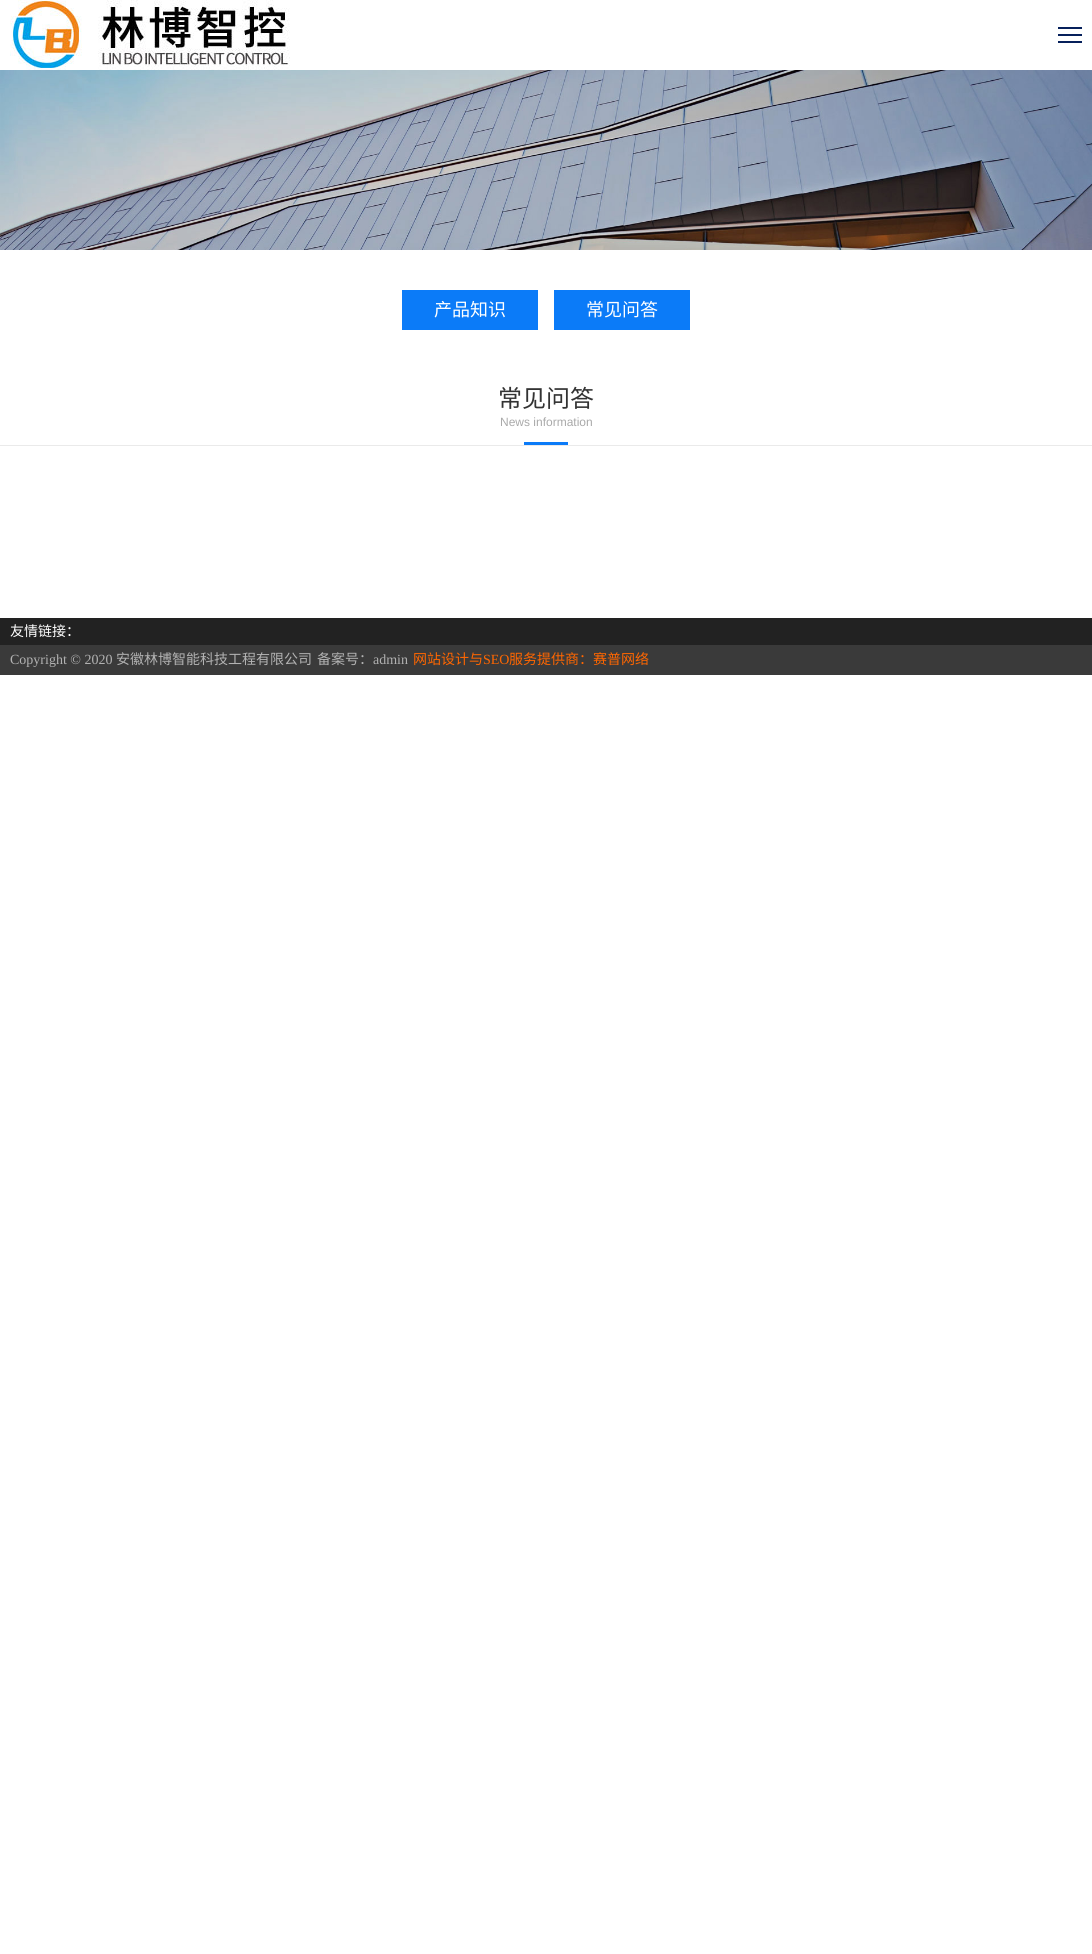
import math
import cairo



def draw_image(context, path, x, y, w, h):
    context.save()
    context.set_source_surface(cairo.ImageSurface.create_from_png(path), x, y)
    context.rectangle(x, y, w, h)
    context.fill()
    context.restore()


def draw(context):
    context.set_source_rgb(1, 1, 1)
    context.paint()
    draw_image(context, "images/1.png", 10, 0, 280, 70)
    context.set_source_rgb(6 / 255, 32 / 255, 91 / 255)
    context.rectangle(1058, 27, 24, 2)
    context.fill()
    context.rectangle(1058, 34, 24, 2)
    context.fill()
    context.rectangle(1058, 41, 24, 2)
    context.fill()
    draw_image(context, "images/2.png", 0, 70, 1092, 180)
    context.set_source_rgb(11 / 255, 123 / 255, 248 / 255)
    context.rectangle(402, 290, 136, 40)
    context.fill()
    context.rectangle(554, 290, 136, 40)
    context.fill()
    context.set_source_rgb(234 / 255, 234 / 255, 234 / 255)
    context.rectangle(0, 445, 1092, 1)
    context.fill()
    context.set_source_rgb(11 / 255, 123 / 255, 248 / 255)
    context.rectangle(524, 442, 44, 3)
    context.fill()
    context.set_source_rgb(34 / 255, 34 / 255, 34 / 255)
    context.rectangle(0, 618, 1092, 27)
    context.fill()
    context.set_source_rgb(58 / 255, 58 / 255, 58 / 255)
    context.rectangle(0, 645, 1092, 30)
    context.fill()
    context.select_font_face("Noto Sans CJK SC")
    context.set_font_size(18)
    context.set_source_rgb(1, 1, 1)
    context.move_to(434, 316)
    context.show_text("产品知识")
    context.move_to(586, 316)
    context.show_text("常见问答")
    context.set_font_size(24)
    context.set_source_rgb(51 / 255, 51 / 255, 51 / 255)
    context.move_to(498, 407)
    context.show_text("常见问答")
    context.select_font_face("Liberation Sans")
    context.set_font_size(12)
    context.set_source_rgb(169 / 255, 169 / 255, 169 / 255)
    context.move_to(500, 426)
    context.show_text("News information")
    context.select_font_face("Noto Sans CJK SC")
    context.set_font_size(14)
    context.set_source_rgb(1, 1, 1)
    context.move_to(10, 636)
    context.show_text("友情链接：")
    context.select_font_face("Liberation Serif")
    context.set_source_rgb(178 / 255, 178 / 255, 178 / 255)
    context.move_to(10, 664)
    context.show_text("Copyright © 2020")
    context.select_font_face("Noto Sans CJK SC")
    context.move_to(116, 664)
    context.show_text("安徽林博智能科技工程有限公司")
    context.move_to(317, 664)
    context.show_text("备案号：")
    context.select_font_face("Liberation Serif")
    context.move_to(373, 664)
    context.show_text("admin")
    context.select_font_face("Noto Sans CJK SC")
    context.set_source_rgb(1, 102 / 255, 0)
    context.move_to(413, 664)
    context.show_text("网站设计与")
    context.select_font_face("Liberation Serif")
    context.move_to(483, 664)
    context.show_text("SEO")
    context.select_font_face("Noto Sans CJK SC")
    context.move_to(509, 664)
    context.show_text("服务提供商：赛普网络")


surface = cairo.ImageSurface(cairo.Format.RGB24, 1092, 1954)
context = cairo.Context(surface)
options = cairo.FontOptions()
options.set_hint_metrics(cairo.HintMetrics.OFF)
options.set_hint_style(cairo.HintStyle.NONE)
context.set_font_options(options)
context.set_miter_limit(4)
draw(context)
surface.write_to_png("out.png")
